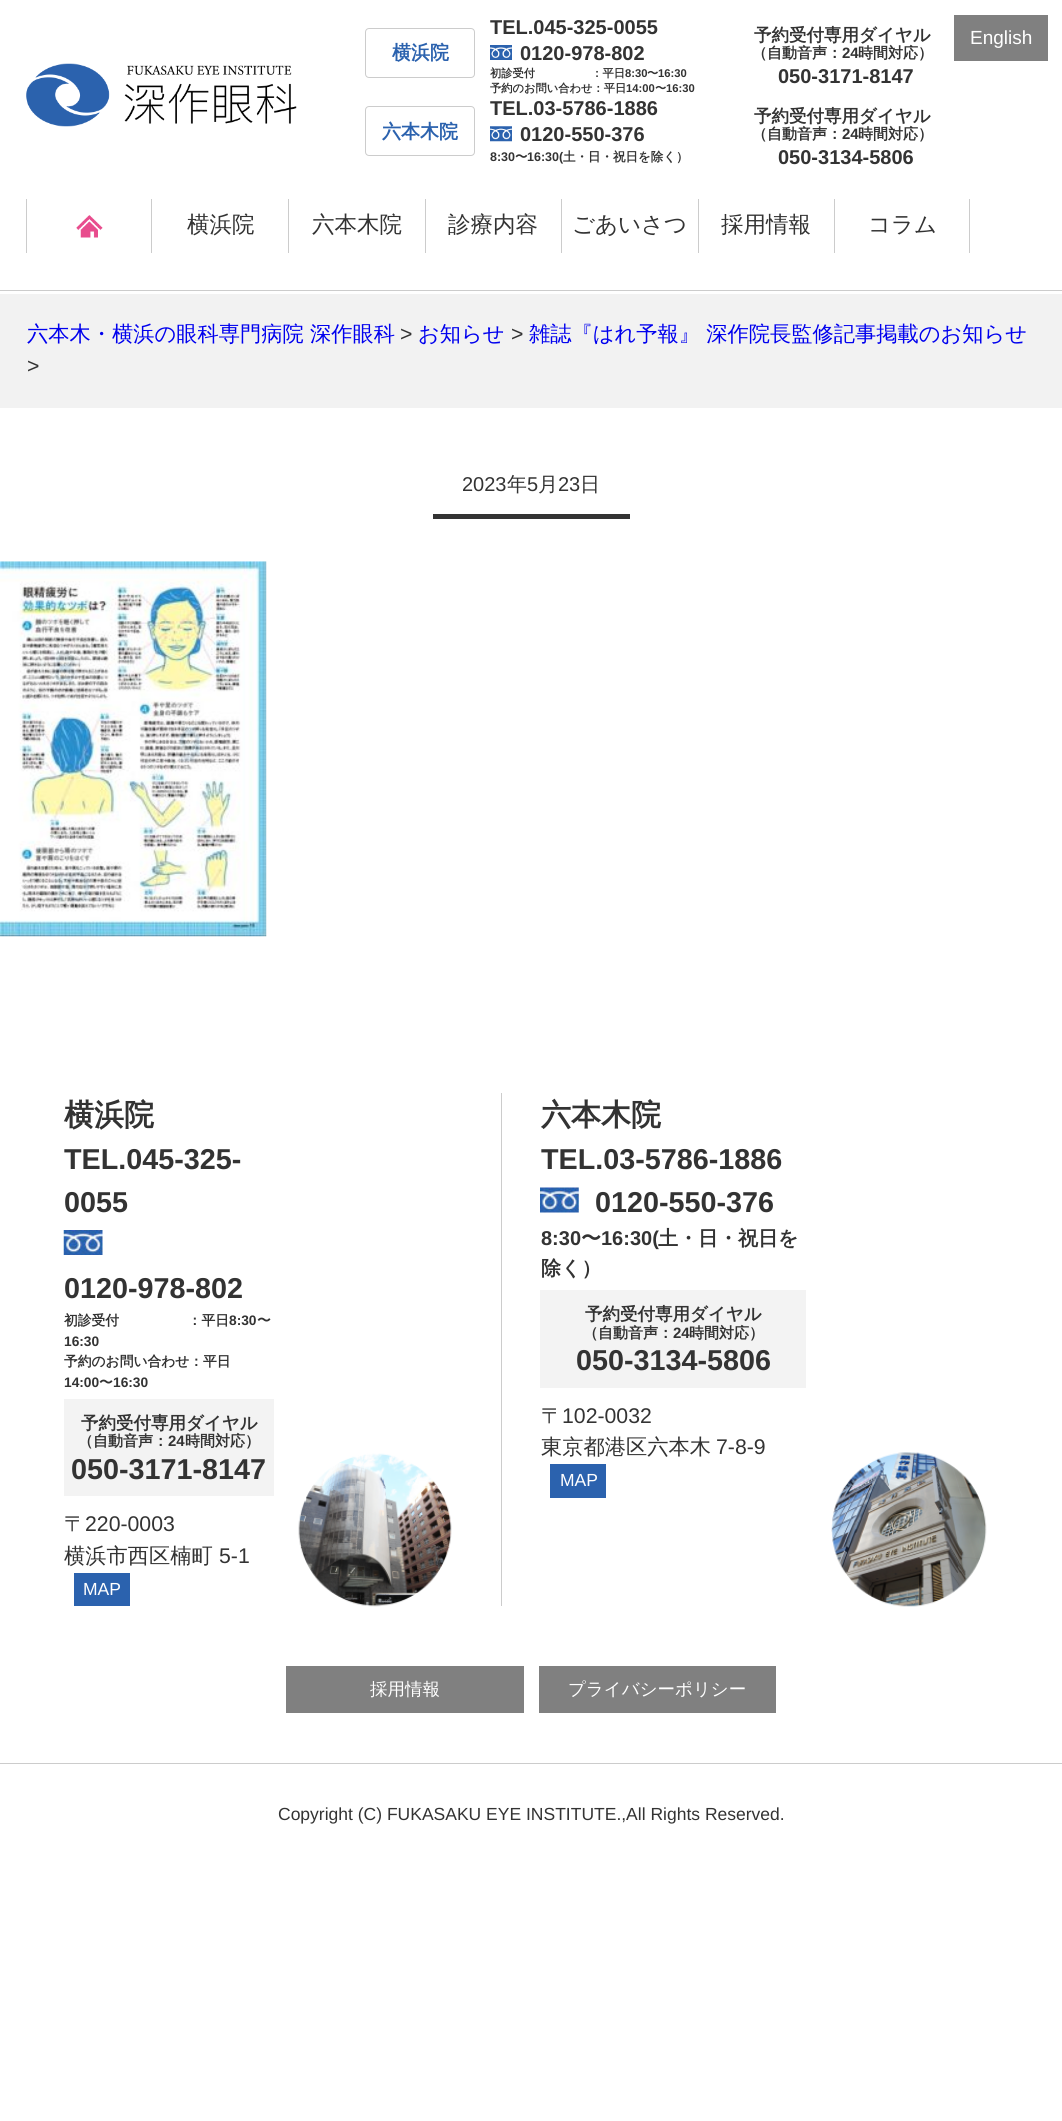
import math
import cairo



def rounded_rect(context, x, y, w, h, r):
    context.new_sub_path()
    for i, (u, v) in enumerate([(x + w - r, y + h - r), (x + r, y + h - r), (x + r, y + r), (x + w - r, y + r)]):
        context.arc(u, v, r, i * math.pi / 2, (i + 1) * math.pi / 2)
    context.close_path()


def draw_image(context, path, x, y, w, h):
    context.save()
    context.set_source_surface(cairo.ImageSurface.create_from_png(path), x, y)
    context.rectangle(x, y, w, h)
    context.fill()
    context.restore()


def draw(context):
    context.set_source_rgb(1, 1, 1)
    context.paint()
    context.set_source_rgb(204 / 255, 204 / 255, 204 / 255)
    context.rectangle(0, 290, 1062, 1)
    context.fill()
    draw_image(context, "images/1.png", 26, 63, 271, 64)
    rounded_rect(context, 365.5, 28.5, 109, 49, 3.5)
    context.set_line_width(1)
    context.stroke()
    draw_image(context, "images/2.png", 490, 45, 22, 15)
    rounded_rect(context, 365.5, 106.5, 109, 49, 3.5)
    context.stroke()
    draw_image(context, "images/3.png", 490, 126, 22, 16)
    context.set_source_rgb(128 / 255, 128 / 255, 128 / 255)
    context.rectangle(954, 15, 94, 46)
    context.fill()
    context.set_source_rgb(204 / 255, 204 / 255, 204 / 255)
    context.rectangle(26, 199, 1, 54)
    context.fill()
    draw_image(context, "images/4.png", 76, 215, 27, 23)
    context.rectangle(151, 199, 1, 54)
    context.fill()
    context.rectangle(288, 199, 1, 54)
    context.fill()
    context.rectangle(425, 199, 1, 54)
    context.fill()
    context.rectangle(561, 199, 1, 54)
    context.fill()
    context.rectangle(698, 199, 1, 54)
    context.fill()
    context.rectangle(969, 199, 1, 54)
    context.fill()
    context.rectangle(834, 199, 1, 54)
    context.fill()
    context.set_source_rgb(242 / 255, 242 / 255, 242 / 255)
    context.rectangle(0, 294, 1062, 114)
    context.fill()
    context.set_source_rgb(51 / 255, 51 / 255, 51 / 255)
    context.rectangle(433, 514, 197, 5)
    context.fill()
    draw_image(context, "images/5.png", 0, 561, 267, 376)
    context.set_source_rgb(204 / 255, 204 / 255, 204 / 255)
    context.rectangle(501, 1093, 1, 513)
    context.fill()
    draw_image(context, "images/6.png", 63, 1230, 40, 25)
    context.set_source_rgb(243 / 255, 243 / 255, 243 / 255)
    context.rectangle(64, 1399, 210, 97)
    context.fill()
    context.set_source_rgb(43 / 255, 98 / 255, 174 / 255)
    context.rectangle(74, 1573, 56, 33)
    context.fill()
    draw_image(context, "images/7.png", 298, 1453, 154, 154)
    draw_image(context, "images/8.png", 540, 1187, 39, 26)
    context.set_source_rgb(243 / 255, 243 / 255, 243 / 255)
    context.rectangle(540, 1290, 266, 98)
    context.fill()
    context.set_source_rgb(43 / 255, 98 / 255, 174 / 255)
    context.rectangle(550, 1464, 56, 34)
    context.fill()
    draw_image(context, "images/9.png", 831, 1452, 156, 155)
    context.set_source_rgb(128 / 255, 128 / 255, 128 / 255)
    context.rectangle(286, 1666, 238, 47)
    context.fill()
    context.rectangle(539, 1666, 237, 47)
    context.fill()
    context.set_source_rgb(204 / 255, 204 / 255, 204 / 255)
    context.rectangle(0, 1763, 1062, 1)
    context.fill()
    context.select_font_face("WenQuanYi Zen Hei", cairo.FontSlant.NORMAL, cairo.FontWeight.BOLD)
    context.set_font_size(19)
    context.set_source_rgb(43 / 255, 98 / 255, 174 / 255)
    context.move_to(392, 59)
    context.show_text("横浜院")
    context.select_font_face("Liberation Sans", cairo.FontSlant.NORMAL, cairo.FontWeight.BOLD)
    context.set_font_size(20)
    context.set_source_rgb(51 / 255, 51 / 255, 51 / 255)
    context.move_to(490, 34)
    context.show_text("TEL.045-325-0055")
    context.move_to(520, 60)
    context.show_text("0120-978-802")
    context.select_font_face("WenQuanYi Zen Hei", cairo.FontSlant.NORMAL, cairo.FontWeight.BOLD)
    context.set_font_size(11.25)
    context.move_to(490, 77)
    context.show_text("初診受付　　　　　：平日")
    context.select_font_face("Liberation Sans", cairo.FontSlant.NORMAL, cairo.FontWeight.BOLD)
    context.move_to(625, 77)
    context.show_text("8:30")
    context.select_font_face("WenQuanYi Zen Hei", cairo.FontSlant.NORMAL, cairo.FontWeight.BOLD)
    context.move_to(647, 77)
    context.show_text("〜")
    context.select_font_face("Liberation Sans", cairo.FontSlant.NORMAL, cairo.FontWeight.BOLD)
    context.move_to(658, 77)
    context.show_text("16:30")
    context.select_font_face("WenQuanYi Zen Hei", cairo.FontSlant.NORMAL, cairo.FontWeight.BOLD)
    context.move_to(490, 92)
    context.show_text("予約のお問い合わせ：平日")
    context.select_font_face("Liberation Sans", cairo.FontSlant.NORMAL, cairo.FontWeight.BOLD)
    context.move_to(626, 92)
    context.show_text("14:00")
    context.select_font_face("WenQuanYi Zen Hei", cairo.FontSlant.NORMAL, cairo.FontWeight.BOLD)
    context.move_to(655, 92)
    context.show_text("〜")
    context.select_font_face("Liberation Sans", cairo.FontSlant.NORMAL, cairo.FontWeight.BOLD)
    context.move_to(666, 92)
    context.show_text("16:30")
    context.select_font_face("WenQuanYi Zen Hei", cairo.FontSlant.NORMAL, cairo.FontWeight.BOLD)
    context.set_font_size(17.5)
    context.move_to(754, 41)
    context.show_text("予約受付専用ダイヤル")
    context.set_font_size(15)
    context.move_to(752, 58)
    context.show_text("（自動音声：")
    context.select_font_face("Liberation Sans", cairo.FontSlant.NORMAL, cairo.FontWeight.BOLD)
    context.move_to(842, 58)
    context.show_text("24")
    context.select_font_face("WenQuanYi Zen Hei", cairo.FontSlant.NORMAL, cairo.FontWeight.BOLD)
    context.move_to(858, 58)
    context.show_text("時間対応）")
    context.select_font_face("Liberation Sans", cairo.FontSlant.NORMAL, cairo.FontWeight.BOLD)
    context.set_font_size(20)
    context.move_to(778, 83)
    context.show_text("050-3171-8147")
    context.select_font_face("WenQuanYi Zen Hei", cairo.FontSlant.NORMAL, cairo.FontWeight.BOLD)
    context.set_font_size(19)
    context.set_source_rgb(43 / 255, 98 / 255, 174 / 255)
    context.move_to(382, 138)
    context.show_text("六本木院")
    context.select_font_face("Liberation Sans", cairo.FontSlant.NORMAL, cairo.FontWeight.BOLD)
    context.set_font_size(20)
    context.set_source_rgb(51 / 255, 51 / 255, 51 / 255)
    context.move_to(490, 115)
    context.show_text("TEL.03-5786-1886")
    context.move_to(520, 141)
    context.show_text("0120-550-376")
    context.set_font_size(12.5)
    context.move_to(490, 161)
    context.show_text("8:30")
    context.select_font_face("WenQuanYi Zen Hei", cairo.FontSlant.NORMAL, cairo.FontWeight.BOLD)
    context.move_to(515, 161)
    context.show_text("〜")
    context.select_font_face("Liberation Sans", cairo.FontSlant.NORMAL, cairo.FontWeight.BOLD)
    context.move_to(527, 161)
    context.show_text("16:30(")
    context.select_font_face("WenQuanYi Zen Hei", cairo.FontSlant.NORMAL, cairo.FontWeight.BOLD)
    context.move_to(563, 161)
    context.show_text("土・日・祝日を除く）")
    context.set_font_size(17.5)
    context.move_to(754, 122)
    context.show_text("予約受付専用ダイヤル")
    context.set_font_size(15)
    context.move_to(752, 139)
    context.show_text("（自動音声：")
    context.select_font_face("Liberation Sans", cairo.FontSlant.NORMAL, cairo.FontWeight.BOLD)
    context.move_to(842, 139)
    context.show_text("24")
    context.select_font_face("WenQuanYi Zen Hei", cairo.FontSlant.NORMAL, cairo.FontWeight.BOLD)
    context.move_to(858, 139)
    context.show_text("時間対応）")
    context.select_font_face("Liberation Sans", cairo.FontSlant.NORMAL, cairo.FontWeight.BOLD)
    context.set_font_size(20)
    context.move_to(778, 164)
    context.show_text("050-3134-5806")
    context.select_font_face("Liberation Sans")
    context.set_font_size(19)
    context.set_source_rgb(1, 1, 1)
    context.move_to(970, 44)
    context.show_text("English")
    context.select_font_face("WenQuanYi Zen Hei Medium")
    context.set_font_size(22.5)
    context.set_source_rgb(51 / 255, 51 / 255, 51 / 255)
    context.move_to(187, 232)
    context.show_text("横浜院")
    context.move_to(312, 232)
    context.show_text("六本木院")
    context.move_to(448, 232)
    context.show_text("診療内容")
    context.move_to(572, 232)
    context.show_text("ごあいさつ")
    context.move_to(721, 232)
    context.show_text("採用情報")
    context.move_to(868, 232)
    context.show_text("コラム")
    context.set_font_size(21.25)
    context.set_source_rgb(0, 0, 238 / 255)
    context.move_to(27, 341)
    context.show_text("六本木・横浜の眼科専門病院 深作眼科")
    context.select_font_face("Liberation Sans")
    context.set_source_rgb(51 / 255, 51 / 255, 51 / 255)
    context.move_to(400, 341)
    context.show_text(">")
    context.select_font_face("WenQuanYi Zen Hei Medium")
    context.set_source_rgb(0, 0, 238 / 255)
    context.move_to(418, 341)
    context.show_text("お知らせ")
    context.select_font_face("Liberation Sans")
    context.set_source_rgb(51 / 255, 51 / 255, 51 / 255)
    context.move_to(511, 341)
    context.show_text(">")
    context.select_font_face("WenQuanYi Zen Hei Medium")
    context.set_source_rgb(0, 0, 238 / 255)
    context.move_to(529, 341)
    context.show_text("雑誌『はれ予報』 深作院長監修記事掲載のお知らせ")
    context.select_font_face("Liberation Sans")
    context.set_source_rgb(51 / 255, 51 / 255, 51 / 255)
    context.move_to(27, 373)
    context.show_text(">")
    context.set_font_size(20)
    context.move_to(462, 491)
    context.show_text("2023")
    context.select_font_face("WenQuanYi Zen Hei Medium")
    context.move_to(507, 491)
    context.show_text("年")
    context.select_font_face("Liberation Sans")
    context.move_to(527, 491)
    context.show_text("5")
    context.select_font_face("WenQuanYi Zen Hei Medium")
    context.move_to(538, 491)
    context.show_text("月")
    context.select_font_face("Liberation Sans")
    context.move_to(558, 491)
    context.show_text("23")
    context.select_font_face("WenQuanYi Zen Hei Medium")
    context.move_to(580, 491)
    context.show_text("日")
    context.select_font_face("WenQuanYi Zen Hei", cairo.FontSlant.NORMAL, cairo.FontWeight.BOLD)
    context.set_font_size(30)
    context.move_to(64, 1125)
    context.show_text("横浜院")
    context.select_font_face("Liberation Sans", cairo.FontSlant.NORMAL, cairo.FontWeight.BOLD)
    context.set_font_size(28.75)
    context.move_to(64, 1169)
    context.show_text("TEL.045-325-")
    context.move_to(64, 1212)
    context.show_text("0055")
    context.move_to(64, 1298)
    context.show_text("0120-978-802")
    context.select_font_face("WenQuanYi Zen Hei", cairo.FontSlant.NORMAL, cairo.FontWeight.BOLD)
    context.set_font_size(13.75)
    context.move_to(64, 1325)
    context.show_text("初診受付　　　　　：平日")
    context.select_font_face("Liberation Sans", cairo.FontSlant.NORMAL, cairo.FontWeight.BOLD)
    context.move_to(229, 1325)
    context.show_text("8:30")
    context.select_font_face("WenQuanYi Zen Hei", cairo.FontSlant.NORMAL, cairo.FontWeight.BOLD)
    context.move_to(257, 1325)
    context.show_text("〜")
    context.select_font_face("Liberation Sans", cairo.FontSlant.NORMAL, cairo.FontWeight.BOLD)
    context.move_to(64, 1346)
    context.show_text("16:30")
    context.select_font_face("WenQuanYi Zen Hei", cairo.FontSlant.NORMAL, cairo.FontWeight.BOLD)
    context.move_to(64, 1366)
    context.show_text("予約のお問い合わせ：平日")
    context.select_font_face("Liberation Sans", cairo.FontSlant.NORMAL, cairo.FontWeight.BOLD)
    context.move_to(64, 1387)
    context.show_text("14:00")
    context.select_font_face("WenQuanYi Zen Hei", cairo.FontSlant.NORMAL, cairo.FontWeight.BOLD)
    context.move_to(99, 1387)
    context.show_text("〜")
    context.select_font_face("Liberation Sans", cairo.FontSlant.NORMAL, cairo.FontWeight.BOLD)
    context.move_to(113, 1387)
    context.show_text("16:30")
    context.select_font_face("WenQuanYi Zen Hei", cairo.FontSlant.NORMAL, cairo.FontWeight.BOLD)
    context.set_font_size(17.5)
    context.move_to(81, 1429)
    context.show_text("予約受付専用ダイヤル")
    context.set_font_size(15)
    context.move_to(78, 1446)
    context.show_text("（自動音声：")
    context.select_font_face("Liberation Sans", cairo.FontSlant.NORMAL, cairo.FontWeight.BOLD)
    context.move_to(168, 1446)
    context.show_text("24")
    context.select_font_face("WenQuanYi Zen Hei", cairo.FontSlant.NORMAL, cairo.FontWeight.BOLD)
    context.move_to(185, 1446)
    context.show_text("時間対応）")
    context.select_font_face("Liberation Sans", cairo.FontSlant.NORMAL, cairo.FontWeight.BOLD)
    context.set_font_size(28.75)
    context.move_to(71, 1479)
    context.show_text("050-3171-8147")
    context.select_font_face("WenQuanYi Zen Hei Medium")
    context.set_font_size(21.25)
    context.move_to(64, 1531)
    context.show_text("〒")
    context.select_font_face("Liberation Sans")
    context.move_to(85, 1531)
    context.show_text("220-0003")
    context.select_font_face("WenQuanYi Zen Hei Medium")
    context.move_to(64, 1563)
    context.show_text("横浜市西区楠町")
    context.select_font_face("Liberation Sans")
    context.move_to(219, 1563)
    context.show_text("5-1")
    context.set_font_size(17.5)
    context.set_source_rgb(1, 1, 1)
    context.move_to(83, 1595)
    context.show_text("MAP")
    context.select_font_face("WenQuanYi Zen Hei", cairo.FontSlant.NORMAL, cairo.FontWeight.BOLD)
    context.set_font_size(30)
    context.set_source_rgb(51 / 255, 51 / 255, 51 / 255)
    context.move_to(541, 1125)
    context.show_text("六本木院")
    context.select_font_face("Liberation Sans", cairo.FontSlant.NORMAL, cairo.FontWeight.BOLD)
    context.set_font_size(28.75)
    context.move_to(541, 1169)
    context.show_text("TEL.03-5786-1886")
    context.move_to(595, 1212)
    context.show_text("0120-550-376")
    context.set_font_size(20)
    context.move_to(541, 1245)
    context.show_text("8:30")
    context.select_font_face("WenQuanYi Zen Hei", cairo.FontSlant.NORMAL, cairo.FontWeight.BOLD)
    context.move_to(581, 1245)
    context.show_text("〜")
    context.select_font_face("Liberation Sans", cairo.FontSlant.NORMAL, cairo.FontWeight.BOLD)
    context.move_to(601, 1245)
    context.show_text("16:30(")
    context.select_font_face("WenQuanYi Zen Hei", cairo.FontSlant.NORMAL, cairo.FontWeight.BOLD)
    context.move_to(658, 1245)
    context.show_text("土・日・祝日を")
    context.move_to(541, 1275)
    context.show_text("除く）")
    context.set_font_size(17.5)
    context.move_to(585, 1320)
    context.show_text("予約受付専用ダイヤル")
    context.set_font_size(15)
    context.move_to(583, 1338)
    context.show_text("（自動音声：")
    context.select_font_face("Liberation Sans", cairo.FontSlant.NORMAL, cairo.FontWeight.BOLD)
    context.move_to(673, 1338)
    context.show_text("24")
    context.select_font_face("WenQuanYi Zen Hei", cairo.FontSlant.NORMAL, cairo.FontWeight.BOLD)
    context.move_to(689, 1338)
    context.show_text("時間対応）")
    context.select_font_face("Liberation Sans", cairo.FontSlant.NORMAL, cairo.FontWeight.BOLD)
    context.set_font_size(28.75)
    context.move_to(576, 1370)
    context.show_text("050-3134-5806")
    context.select_font_face("WenQuanYi Zen Hei Medium")
    context.set_font_size(21.25)
    context.move_to(541, 1423)
    context.show_text("〒")
    context.select_font_face("Liberation Sans")
    context.move_to(562, 1423)
    context.show_text("102-0032")
    context.select_font_face("WenQuanYi Zen Hei Medium")
    context.move_to(541, 1454)
    context.show_text("東京都港区六本木")
    context.select_font_face("Liberation Sans")
    context.move_to(716, 1454)
    context.show_text("7-8-9")
    context.set_font_size(17.5)
    context.set_source_rgb(1, 1, 1)
    context.move_to(560, 1486)
    context.show_text("MAP")
    context.select_font_face("WenQuanYi Zen Hei Medium")
    context.move_to(370, 1695)
    context.show_text("採用情報")
    context.move_to(568, 1695)
    context.show_text("プライバシーポリシー")
    context.select_font_face("Liberation Sans")
    context.set_source_rgb(51 / 255, 51 / 255, 51 / 255)
    context.move_to(278, 1820)
    context.show_text("Copyright (C) FUKASAKU EYE INSTITUTE.,All Rights Reserved.")


surface = cairo.ImageSurface(cairo.Format.RGB24, 1062, 2121)
context = cairo.Context(surface)
options = cairo.FontOptions()
options.set_hint_metrics(cairo.HintMetrics.OFF)
options.set_hint_style(cairo.HintStyle.NONE)
context.set_font_options(options)
context.set_miter_limit(4)
draw(context)
surface.write_to_png("out.png")
